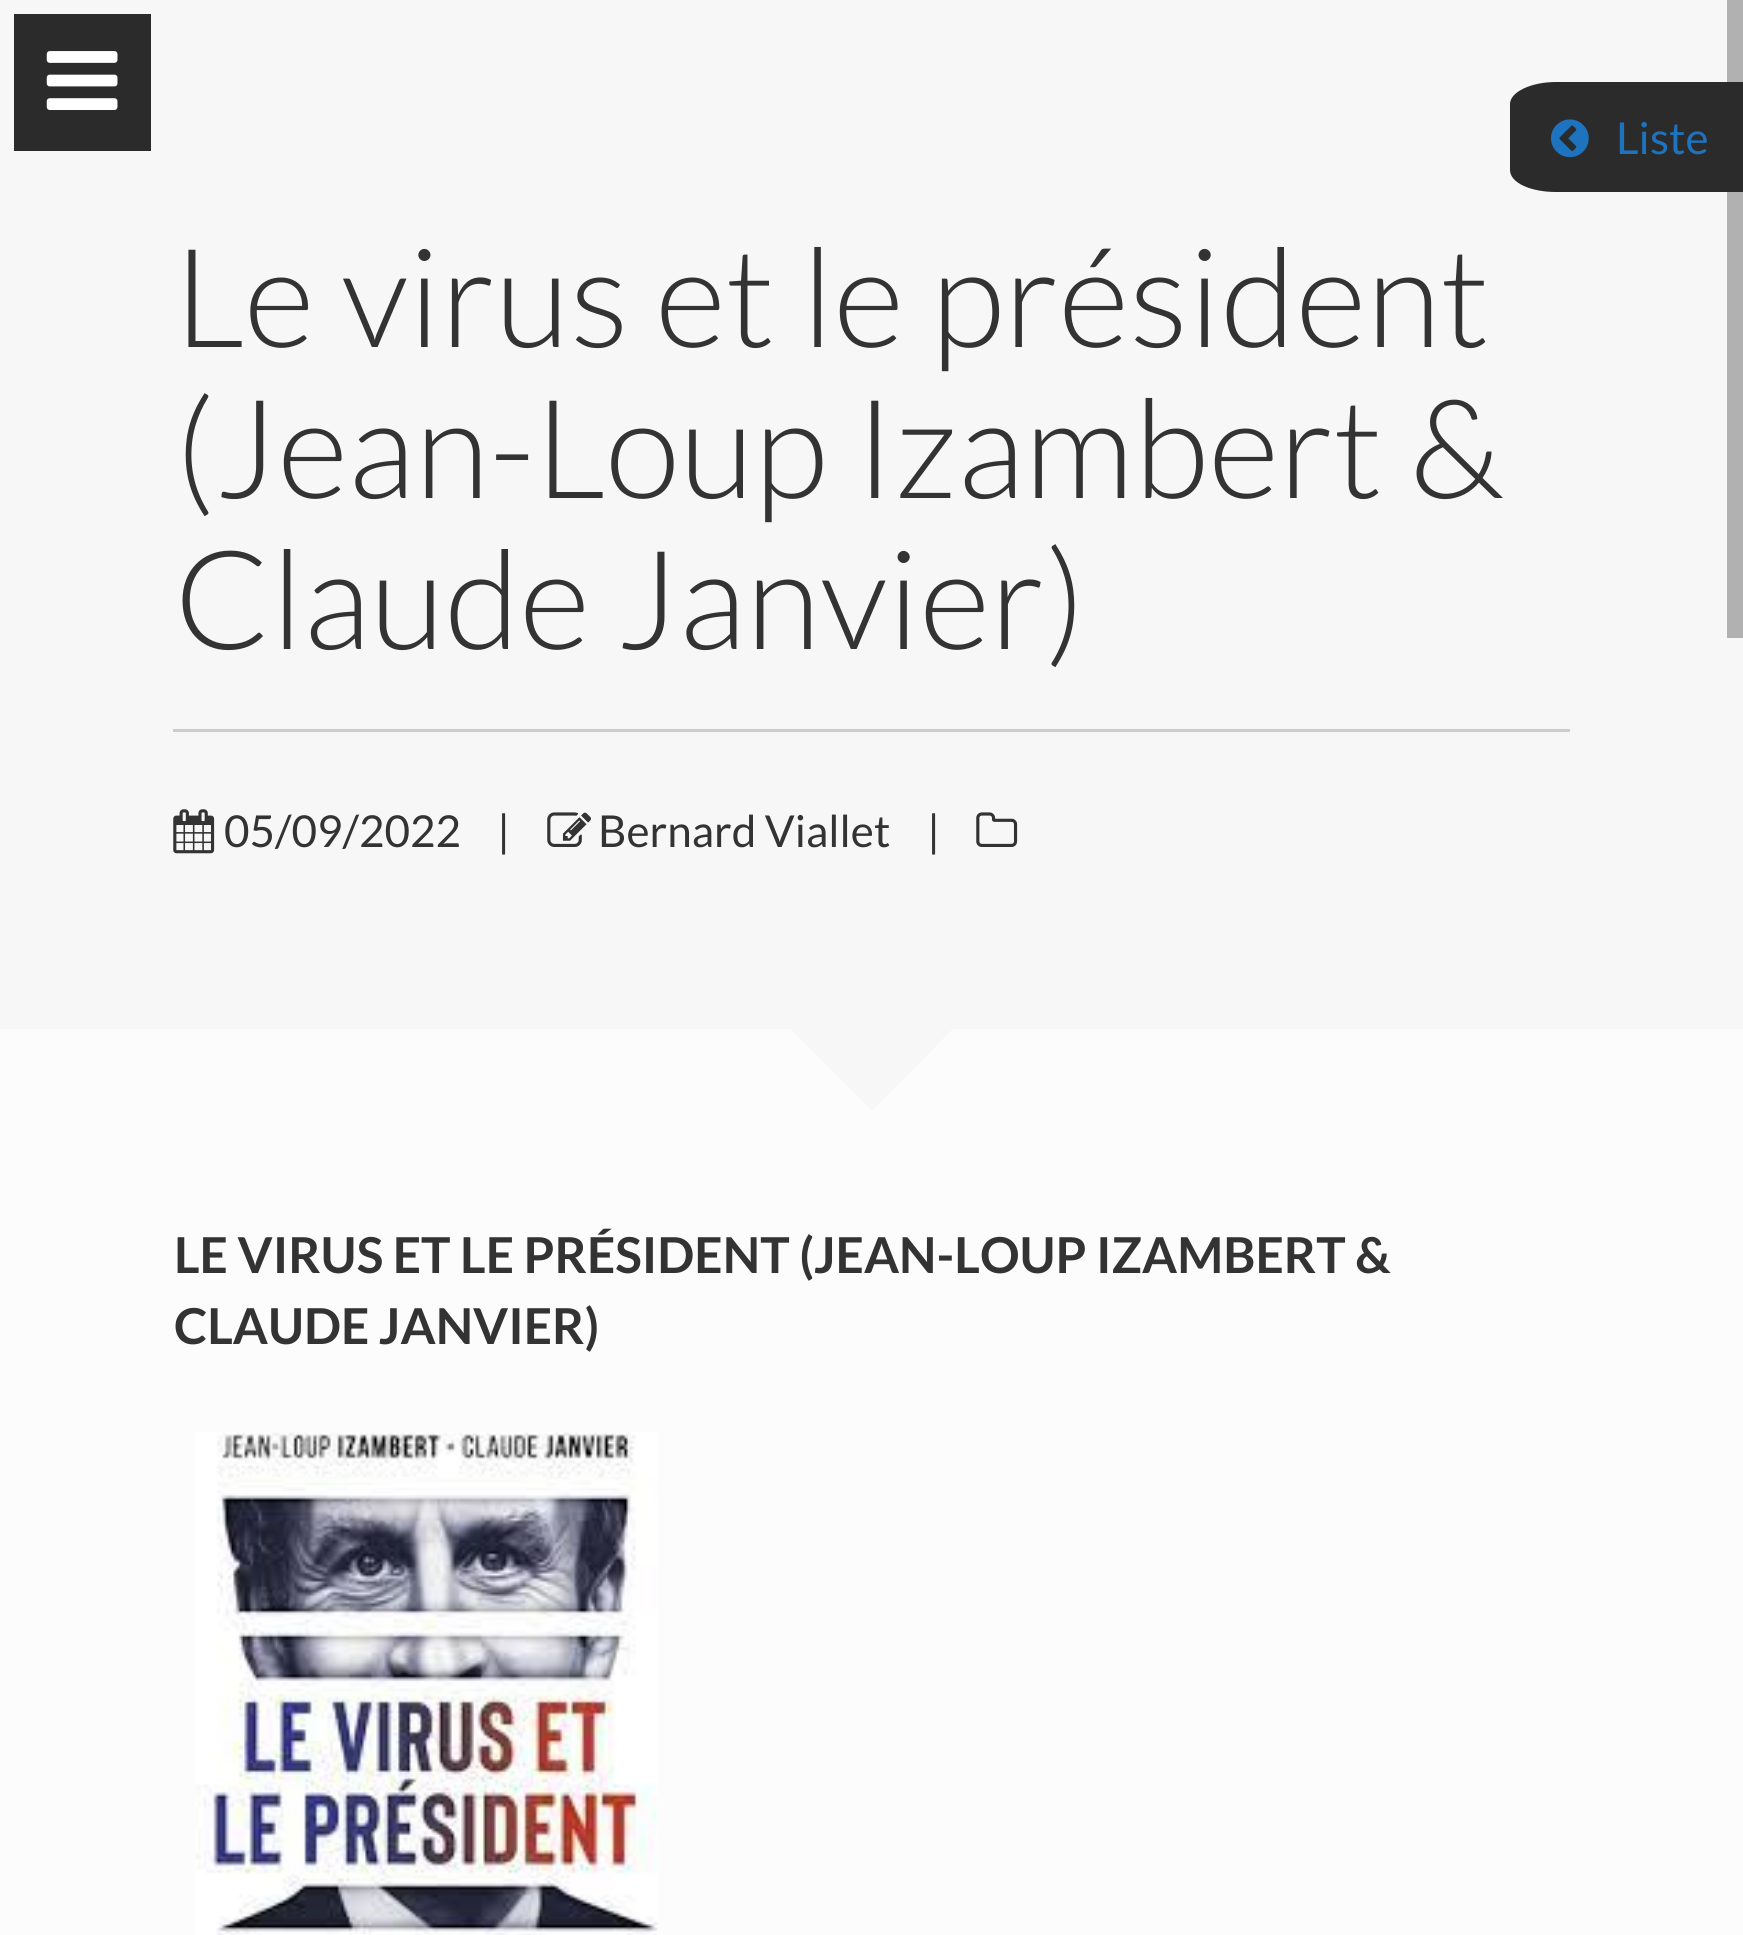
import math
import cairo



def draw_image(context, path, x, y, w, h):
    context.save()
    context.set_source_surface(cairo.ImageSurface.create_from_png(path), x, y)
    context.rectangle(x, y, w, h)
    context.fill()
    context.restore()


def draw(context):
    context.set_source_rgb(252 / 255, 252 / 255, 252 / 255)
    context.paint()
    context.set_source_rgb(247 / 255, 247 / 255, 247 / 255)
    context.rectangle(0, 0, 1743, 1029)
    context.fill()
    context.set_source_rgb(43 / 255, 43 / 255, 43 / 255)
    context.rectangle(14, 14, 137, 137)
    context.fill()
    draw_image(context, "images/1.png", 46, 51, 72, 59)
    context.set_source_rgb(177 / 255, 177 / 255, 177 / 255)
    context.rectangle(1727, 0, 16, 638)
    context.fill()
    context.set_source_rgb(43 / 255, 43 / 255, 43 / 255)
    context.new_path()
    context.move_to(1556, 82)
    context.line_to(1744, 82)
    context.line_to(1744, 192)
    context.line_to(1556, 192)
    context.curve_to(1531, 192, 1510, 183, 1510, 170)
    context.line_to(1510, 104)
    context.curve_to(1510, 92, 1531, 82, 1556, 82)
    context.close_path()
    context.fill()
    draw_image(context, "images/2.png", 1551, 119, 38, 39)
    context.set_source_rgb(204 / 255, 204 / 255, 204 / 255)
    context.rectangle(173, 729, 1397, 3)
    context.fill()
    draw_image(context, "images/3.png", 173, 809, 42, 45)
    draw_image(context, "images/4.png", 547, 812, 44, 35)
    draw_image(context, "images/5.png", 976, 812, 42, 35)
    context.set_source_rgb(247 / 255, 247 / 255, 247 / 255)
    context.new_path()
    context.move_to(789, 1028)
    context.line_to(954, 1028)
    context.line_to(872, 1111)
    context.close_path()
    context.fill()
    draw_image(context, "images/6.png", 195, 1432, 463, 503)
    context.select_font_face("Lato")
    context.set_font_size(44)
    context.set_source_rgb(30 / 255, 115 / 255, 190 / 255)
    context.move_to(1616, 154)
    context.show_text("Liste")
    context.select_font_face("Lato Light")
    context.set_font_size(137.5)
    context.set_source_rgb(51 / 255, 51 / 255, 51 / 255)
    context.move_to(174, 347)
    context.show_text("Le virus et le président")
    context.move_to(174, 498)
    context.show_text("(Jean-Loup Izambert &")
    context.move_to(174, 649)
    context.show_text("Claude Janvier)")
    context.select_font_face("Lato")
    context.set_font_size(44)
    context.move_to(224, 847)
    context.show_text("05/09/2022")
    context.move_to(497, 847)
    context.show_text("|")
    context.move_to(598, 847)
    context.show_text("Bernard Viallet")
    context.move_to(927, 847)
    context.show_text("|")
    context.select_font_face("Lato", cairo.FontSlant.NORMAL, cairo.FontWeight.BOLD)
    context.set_font_size(49.5)
    context.move_to(174, 1273)
    context.show_text("LE VIRUS ET LE PRÉSIDENT (JEAN-LOUP IZAMBERT &")
    context.move_to(174, 1344)
    context.show_text("CLAUDE JANVIER)")


surface = cairo.ImageSurface(cairo.Format.RGB24, 1743, 1935)
context = cairo.Context(surface)
options = cairo.FontOptions()
options.set_hint_metrics(cairo.HintMetrics.OFF)
options.set_hint_style(cairo.HintStyle.NONE)
context.set_font_options(options)
context.set_miter_limit(4)
draw(context)
surface.write_to_png("out.png")
